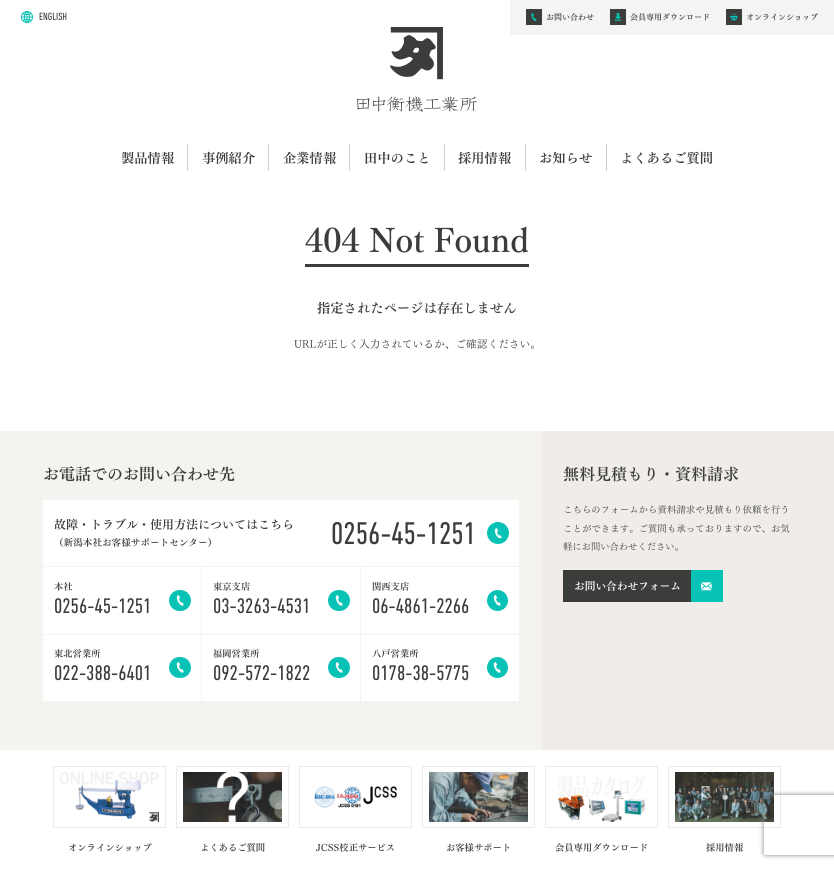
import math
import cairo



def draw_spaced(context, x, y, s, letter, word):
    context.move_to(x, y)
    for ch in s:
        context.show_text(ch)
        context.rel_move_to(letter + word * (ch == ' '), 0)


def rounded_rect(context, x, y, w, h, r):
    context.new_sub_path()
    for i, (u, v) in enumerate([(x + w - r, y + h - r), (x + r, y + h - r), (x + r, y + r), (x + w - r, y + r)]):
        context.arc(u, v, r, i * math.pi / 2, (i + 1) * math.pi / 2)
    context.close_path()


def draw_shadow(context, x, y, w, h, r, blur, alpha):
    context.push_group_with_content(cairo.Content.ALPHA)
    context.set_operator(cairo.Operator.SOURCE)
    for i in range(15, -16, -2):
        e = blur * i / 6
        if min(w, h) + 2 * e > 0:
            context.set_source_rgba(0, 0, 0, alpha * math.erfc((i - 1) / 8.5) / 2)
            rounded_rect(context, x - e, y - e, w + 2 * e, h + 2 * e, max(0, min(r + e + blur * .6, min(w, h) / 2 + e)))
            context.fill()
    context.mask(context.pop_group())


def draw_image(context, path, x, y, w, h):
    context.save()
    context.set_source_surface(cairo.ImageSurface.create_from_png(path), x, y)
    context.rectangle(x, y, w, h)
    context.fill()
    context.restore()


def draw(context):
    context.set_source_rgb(1, 1, 1)
    context.paint()
    draw_image(context, "images/1.png", 21, 11, 12, 12)
    context.set_source_rgb(243 / 255, 244 / 255, 243 / 255)
    context.rectangle(510, 0, 324, 35)
    context.fill()
    context.set_source_rgb(59 / 255, 61 / 255, 59 / 255)
    context.rectangle(526, 9, 16, 16)
    context.fill()
    draw_image(context, "images/2.png", 531, 13, 6, 8)
    context.rectangle(610, 9, 16, 16)
    context.fill()
    draw_image(context, "images/3.png", 615, 13, 6, 8)
    context.rectangle(726, 9, 16, 16)
    context.fill()
    draw_image(context, "images/4.png", 730, 13, 8, 8)
    context.set_source_rgb(206 / 255, 207 / 255, 206 / 255)
    context.rectangle(187, 144, 1, 27)
    context.fill()
    context.rectangle(268, 144, 1, 27)
    context.fill()
    context.rectangle(349, 144, 1, 27)
    context.fill()
    context.rectangle(444, 144, 1, 27)
    context.fill()
    context.rectangle(525, 144, 1, 27)
    context.fill()
    context.rectangle(606, 144, 1, 27)
    context.fill()
    draw_image(context, "images/5.png", 390, 27, 53, 53)
    draw_image(context, "images/6.png", 357, 96, 120, 16)
    context.set_source_rgb(59 / 255, 61 / 255, 59 / 255)
    context.rectangle(305, 264, 224, 3)
    context.fill()
    context.set_source_rgb(245 / 255, 243 / 255, 240 / 255)
    context.rectangle(0, 431, 542, 319)
    context.fill()
    context.set_source_rgb(1, 1, 1)
    context.rectangle(43, 500, 476, 66)
    context.fill()
    context.set_source_rgb(8 / 255, 194 / 255, 181 / 255)
    context.arc(498, 533, 11, 0, 2 * math.pi)
    context.fill()
    draw_image(context, "images/7.png", 494, 528, 8, 10)
    context.set_source_rgb(1, 1, 1)
    context.rectangle(43, 567, 158, 67)
    context.fill()
    context.set_source_rgb(8 / 255, 194 / 255, 181 / 255)
    rounded_rect(context, 169, 590, 22, 21, 10.5)
    context.fill()
    draw_image(context, "images/8.png", 176, 595, 8, 11)
    context.set_source_rgb(1, 1, 1)
    context.rectangle(202, 567, 158, 67)
    context.fill()
    context.set_source_rgb(8 / 255, 194 / 255, 181 / 255)
    rounded_rect(context, 328, 590, 22, 21, 10.5)
    context.fill()
    draw_image(context, "images/8.png", 335, 595, 8, 11)
    context.set_source_rgb(1, 1, 1)
    context.rectangle(361, 567, 158, 67)
    context.fill()
    context.set_source_rgb(8 / 255, 194 / 255, 181 / 255)
    context.arc(497.5, 600.5, 10.5, 0, 2 * math.pi)
    context.fill()
    draw_image(context, "images/8.png", 493, 595, 8, 11)
    context.set_source_rgb(1, 1, 1)
    context.rectangle(43, 635, 158, 66)
    context.fill()
    context.set_source_rgb(8 / 255, 194 / 255, 181 / 255)
    rounded_rect(context, 169, 657, 22, 21, 10.5)
    context.fill()
    draw_image(context, "images/8.png", 176, 662, 8, 11)
    context.set_source_rgb(1, 1, 1)
    context.rectangle(202, 635, 158, 66)
    context.fill()
    context.set_source_rgb(8 / 255, 194 / 255, 181 / 255)
    rounded_rect(context, 328, 657, 22, 21, 10.5)
    context.fill()
    draw_image(context, "images/8.png", 335, 662, 8, 11)
    context.set_source_rgb(1, 1, 1)
    context.rectangle(361, 635, 158, 66)
    context.fill()
    context.set_source_rgb(8 / 255, 194 / 255, 181 / 255)
    context.arc(497.5, 667.5, 10.5, 0, 2 * math.pi)
    context.fill()
    draw_image(context, "images/8.png", 493, 662, 8, 11)
    context.set_source_rgb(240 / 255, 237 / 255, 233 / 255)
    context.rectangle(542, 431, 292, 319)
    context.fill()
    context.set_source_rgb(59 / 255, 61 / 255, 59 / 255)
    context.rectangle(563, 570, 128, 32)
    context.fill()
    context.set_source_rgb(8 / 255, 194 / 255, 181 / 255)
    context.rectangle(691, 570, 32, 32)
    context.fill()
    draw_image(context, "images/9.png", 701, 582, 11, 9)
    context.rectangle(53.5, 766.5, 112, 61)
    context.set_source_rgb(232 / 255, 235 / 255, 232 / 255)
    context.set_line_width(1)
    context.stroke()
    draw_image(context, "images/10.png", 60, 772, 99, 50)
    context.rectangle(176.5, 766.5, 112, 61)
    context.stroke()
    draw_image(context, "images/11.png", 183, 772, 99, 50)
    context.rectangle(299.5, 766.5, 112, 61)
    context.stroke()
    draw_image(context, "images/12.png", 314, 786, 83, 22)
    context.rectangle(422.5, 766.5, 112, 61)
    context.stroke()
    draw_image(context, "images/13.png", 429, 772, 99, 50)
    context.rectangle(545.5, 766.5, 112, 61)
    context.stroke()
    draw_image(context, "images/14.png", 557, 775, 89, 47)
    context.rectangle(668.5, 766.5, 112, 61)
    context.stroke()
    draw_image(context, "images/15.png", 675, 772, 99, 50)
    context.save()
    context.set_fill_rule(cairo.FillRule.EVEN_ODD)
    context.new_path()
    context.move_to(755, 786)
    context.line_to(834, 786)
    context.line_to(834, 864)
    context.line_to(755, 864)
    context.close_path()
    context.move_to(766, 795)
    context.line_to(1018, 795)
    context.curve_to(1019, 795, 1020, 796, 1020, 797)
    context.line_to(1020, 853)
    context.curve_to(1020, 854, 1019, 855, 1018, 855)
    context.line_to(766, 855)
    context.curve_to(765, 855, 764, 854, 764, 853)
    context.line_to(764, 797)
    context.curve_to(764, 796, 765, 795, 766, 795)
    context.close_path()
    context.clip()
    context.set_source_rgb(128 / 255, 128 / 255, 128 / 255)
    draw_shadow(context, 764, 795, 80, 60, 2, 2.5, 1)
    context.restore()
    context.select_font_face("DIN Next")
    context.set_font_size(10.7)
    context.set_source_rgb(59 / 255, 61 / 255, 59 / 255)
    context.move_to(39, 20)
    context.show_text("ENGLISH")
    context.select_font_face("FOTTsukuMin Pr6", cairo.FontSlant.NORMAL, cairo.FontWeight.BOLD)
    context.set_font_size(8)
    context.move_to(546, 20)
    context.show_text("お問い合わせ")
    context.move_to(630, 20)
    context.show_text("会員専用ダウンロード")
    context.move_to(746, 20)
    context.show_text("オンラインショップ")
    context.set_font_size(13.3)
    context.move_to(121, 163)
    context.show_text("製品情報")
    context.move_to(202, 163)
    context.show_text("事例紹介")
    context.move_to(283, 163)
    context.show_text("企業情報")
    context.move_to(364, 163)
    context.show_text("田中のこと")
    context.move_to(458, 163)
    context.show_text("採用情報")
    context.move_to(539, 163)
    context.show_text("お知らせ")
    context.move_to(620, 163)
    context.show_text("よくあるご質問")
    context.set_font_size(32)
    context.move_to(305, 252)
    context.show_text("404 Not Found")
    context.set_font_size(13.3)
    context.move_to(317, 313)
    context.show_text("指定されたページは存在しません")
    context.select_font_face("FOTTsukuMin Pr6")
    context.set_font_size(10.7)
    context.move_to(294, 348)
    context.show_text("URLが正しく入力されているか、ご確認ください。")
    context.select_font_face("FOTTsukuMin Pr6", cairo.FontSlant.NORMAL, cairo.FontWeight.BOLD)
    context.set_font_size(16)
    context.move_to(43, 480)
    context.show_text("お電話でのお問い合わせ先")
    context.set_font_size(12)
    context.move_to(54, 529)
    context.show_text("故障・トラブル・使用方法についてはこちら")
    context.set_font_size(9.6)
    context.move_to(54, 546)
    context.show_text("（新潟本社お客様サポートセンター）")
    context.select_font_face("DIN Next")
    context.set_font_size(32)
    context.move_to(331, 544)
    context.show_text("0256-45-1251")
    context.select_font_face("FOTTsukuMin Pr6", cairo.FontSlant.NORMAL, cairo.FontWeight.BOLD)
    context.set_font_size(9.3)
    context.move_to(54, 590)
    context.show_text("本社")
    context.select_font_face("DIN Next")
    context.set_font_size(21.5)
    context.move_to(54, 613)
    context.show_text("0256-45-1251")
    context.select_font_face("FOTTsukuMin Pr6", cairo.FontSlant.NORMAL, cairo.FontWeight.BOLD)
    context.set_font_size(9.3)
    context.move_to(213, 590)
    context.show_text("東京支店")
    context.select_font_face("DIN Next")
    context.set_font_size(21.5)
    context.move_to(213, 613)
    context.show_text("03-3263-4531")
    context.select_font_face("FOTTsukuMin Pr6", cairo.FontSlant.NORMAL, cairo.FontWeight.BOLD)
    context.set_font_size(9.3)
    context.move_to(372, 590)
    context.show_text("関西支店")
    context.select_font_face("DIN Next")
    context.set_font_size(21.5)
    context.move_to(372, 613)
    context.show_text("06-4861-2266")
    context.select_font_face("FOTTsukuMin Pr6", cairo.FontSlant.NORMAL, cairo.FontWeight.BOLD)
    context.set_font_size(9.3)
    context.move_to(54, 657)
    context.show_text("東北営業所")
    context.select_font_face("DIN Next")
    context.set_font_size(21.5)
    context.move_to(54, 680)
    context.show_text("022-388-6401")
    context.select_font_face("FOTTsukuMin Pr6", cairo.FontSlant.NORMAL, cairo.FontWeight.BOLD)
    context.set_font_size(9.3)
    context.move_to(213, 657)
    context.show_text("福岡営業所")
    context.select_font_face("DIN Next")
    context.set_font_size(21.5)
    context.move_to(213, 680)
    context.show_text("092-572-1822")
    context.select_font_face("FOTTsukuMin Pr6", cairo.FontSlant.NORMAL, cairo.FontWeight.BOLD)
    context.set_font_size(9.3)
    context.move_to(372, 657)
    context.show_text("八戸営業所")
    context.select_font_face("DIN Next")
    context.set_font_size(21.5)
    context.move_to(372, 680)
    context.show_text("0178-38-5775")
    context.select_font_face("FOTTsukuMin Pr6", cairo.FontSlant.NORMAL, cairo.FontWeight.BOLD)
    context.set_font_size(16)
    context.move_to(563, 480)
    context.show_text("無料見積もり・資料請求")
    context.select_font_face("FOTTsukuMin Pr6")
    context.set_font_size(9.3)
    draw_spaced(context, 563, 513, "こちらのフォームから資料請求や見積もり依頼を行う", 0.15, 0)
    draw_spaced(context, 563, 532, "ことができます。ご質問も承っておりますので、お気", 0.15, 0)
    context.move_to(563, 550)
    context.show_text("軽にお問い合わせください。")
    context.select_font_face("FOTTsukuMin Pr6", cairo.FontSlant.NORMAL, cairo.FontWeight.BOLD)
    context.set_font_size(10.7)
    context.set_source_rgb(1, 1, 1)
    context.move_to(574, 590)
    context.show_text("お問い合わせフォーム")
    context.set_font_size(9.3)
    context.set_source_rgb(59 / 255, 61 / 255, 59 / 255)
    context.move_to(68, 851)
    context.show_text("オンラインショップ")
    context.move_to(200, 851)
    context.show_text("よくあるご質問")
    context.move_to(316, 851)
    context.show_text("JCSS校正サービス")
    context.move_to(446, 851)
    context.show_text("お客様サポート")
    context.move_to(555, 851)
    context.show_text("会員専用ダウンロード")
    context.move_to(706, 851)
    context.show_text("採用情報")


surface = cairo.ImageSurface(cairo.Format.RGB24, 834, 869)
context = cairo.Context(surface)
options = cairo.FontOptions()
options.set_hint_metrics(cairo.HintMetrics.OFF)
options.set_hint_style(cairo.HintStyle.NONE)
context.set_font_options(options)
context.set_miter_limit(4)
draw(context)
surface.write_to_png("out.png")
